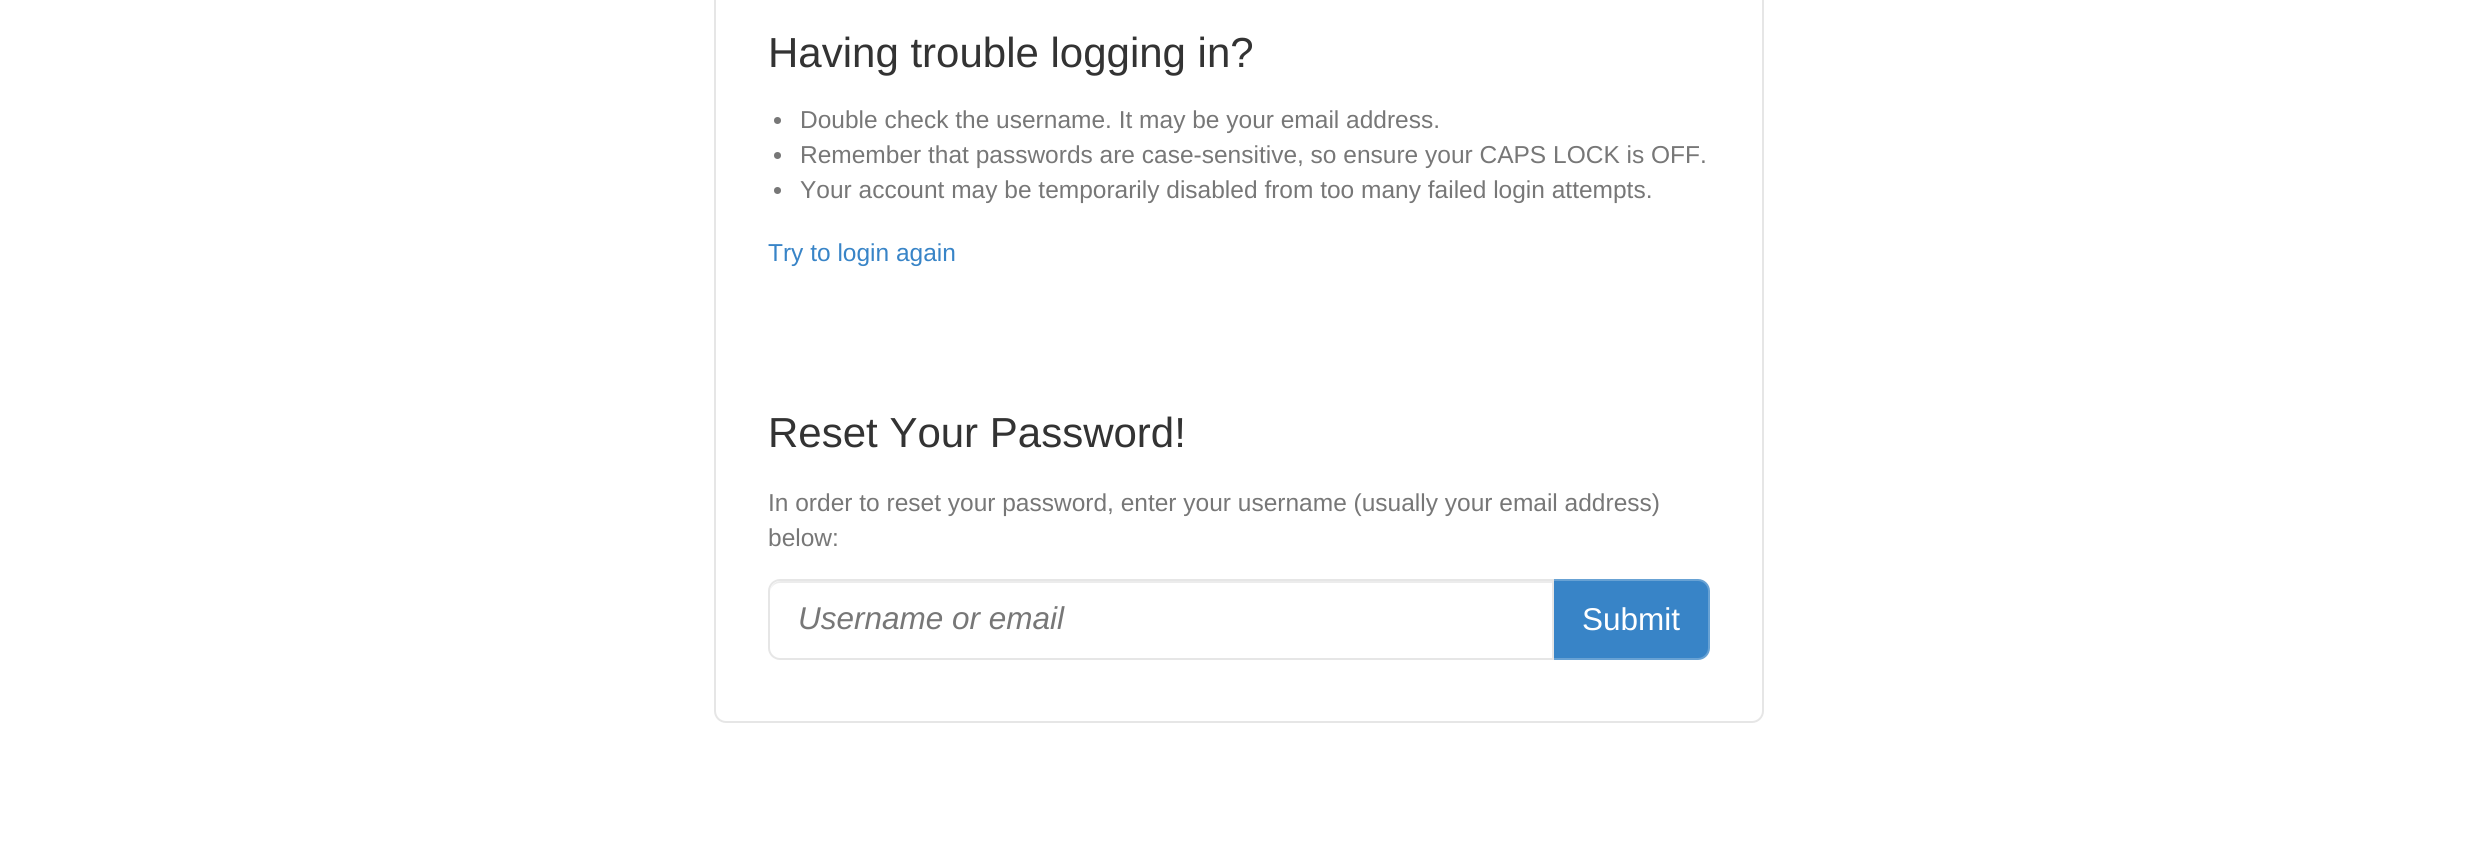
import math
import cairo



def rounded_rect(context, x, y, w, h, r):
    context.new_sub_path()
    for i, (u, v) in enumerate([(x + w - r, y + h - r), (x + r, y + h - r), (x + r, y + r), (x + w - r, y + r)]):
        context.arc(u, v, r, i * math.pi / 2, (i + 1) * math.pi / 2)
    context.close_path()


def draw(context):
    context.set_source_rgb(1, 1, 1)
    context.paint()
    rounded_rect(context, 715, -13, 1048, 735, 11)
    context.set_source_rgb(230 / 255, 230 / 255, 230 / 255)
    context.stroke()
    context.set_source_rgb(119 / 255, 119 / 255, 119 / 255)
    context.arc(777.5, 120.5, 3.5, 0, 2 * math.pi)
    context.fill()
    context.arc(777.5, 155.5, 3.5, 0, 2 * math.pi)
    context.fill()
    context.arc(777.5, 190.5, 3.5, 0, 2 * math.pi)
    context.fill()
    context.set_source_rgb(56 / 255, 132 / 255, 199 / 255)
    context.new_path()
    context.move_to(1553, 580)
    context.line_to(1698, 580)
    context.curve_to(1704, 580, 1709, 585, 1709, 591)
    context.line_to(1709, 648)
    context.curve_to(1709, 654, 1704, 659, 1698, 659)
    context.line_to(1553, 659)
    context.close_path()
    context.fill_preserve()
    context.set_source_rgb(104 / 255, 162 / 255, 212 / 255)
    context.stroke()
    context.set_source_rgb(1, 1, 1)
    context.new_path()
    context.move_to(780, 579)
    context.line_to(1554, 579)
    context.line_to(1554, 660)
    context.line_to(780, 660)
    context.curve_to(773.5, 660, 768, 654.5, 768, 648)
    context.line_to(768, 591)
    context.curve_to(768, 584.5, 773.5, 579, 780, 579)
    context.close_path()
    context.fill()
    context.set_source_rgb(236 / 255, 236 / 255, 236 / 255)
    context.new_path()
    context.move_to(780, 583)
    context.line_to(1552, 583)
    context.line_to(1552, 581)
    context.line_to(781, 581)
    context.curve_to(774, 581, 770, 587, 770, 593)
    context.curve_to(770, 587, 775, 583, 780, 583)
    context.close_path()
    context.fill()
    context.new_path()
    context.move_to(780, 580)
    context.line_to(1553, 580)
    context.line_to(1553, 659)
    context.line_to(780, 659)
    context.curve_to(774, 659, 769, 654, 769, 648)
    context.line_to(769, 591)
    context.curve_to(769, 585, 774, 580, 780, 580)
    context.close_path()
    context.set_source_rgb(230 / 255, 230 / 255, 230 / 255)
    context.stroke()
    context.select_font_face("Liberation Sans")
    context.set_font_size(42)
    context.set_source_rgb(51 / 255, 51 / 255, 51 / 255)
    context.move_to(768, 67)
    context.show_text("Having trouble logging in?")
    context.set_font_size(24.5)
    context.set_source_rgb(119 / 255, 119 / 255, 119 / 255)
    context.move_to(800, 128)
    context.show_text("Double check the username. It may be your email address.")
    context.move_to(800, 163)
    context.show_text("Remember that passwords are case-sensitive, so ensure your CAPS LOCK is OFF.")
    context.move_to(800, 198)
    context.show_text("Your account may be temporarily disabled from too many failed login attempts.")
    context.set_source_rgb(56 / 255, 132 / 255, 199 / 255)
    context.move_to(768, 261)
    context.show_text("Try to login again")
    context.set_font_size(42)
    context.set_source_rgb(51 / 255, 51 / 255, 51 / 255)
    context.move_to(768, 447)
    context.show_text("Reset Your Password!")
    context.set_font_size(24.5)
    context.set_source_rgb(119 / 255, 119 / 255, 119 / 255)
    context.move_to(768, 511)
    context.show_text("In order to reset your password, enter your username (usually your email address)")
    context.move_to(768, 546)
    context.show_text("below:")
    context.select_font_face("Liberation Sans", cairo.FontSlant.ITALIC)
    context.set_font_size(31.5)
    context.move_to(798, 629)
    context.show_text("Username or email")
    context.select_font_face("Liberation Sans")
    context.set_source_rgb(1, 1, 1)
    context.move_to(1582, 630)
    context.show_text("Submit")


surface = cairo.ImageSurface(cairo.Format.RGB24, 2478, 844)
context = cairo.Context(surface)
options = cairo.FontOptions()
options.set_hint_metrics(cairo.HintMetrics.OFF)
options.set_hint_style(cairo.HintStyle.NONE)
context.set_font_options(options)
context.set_miter_limit(4)
draw(context)
surface.write_to_png("out.png")
